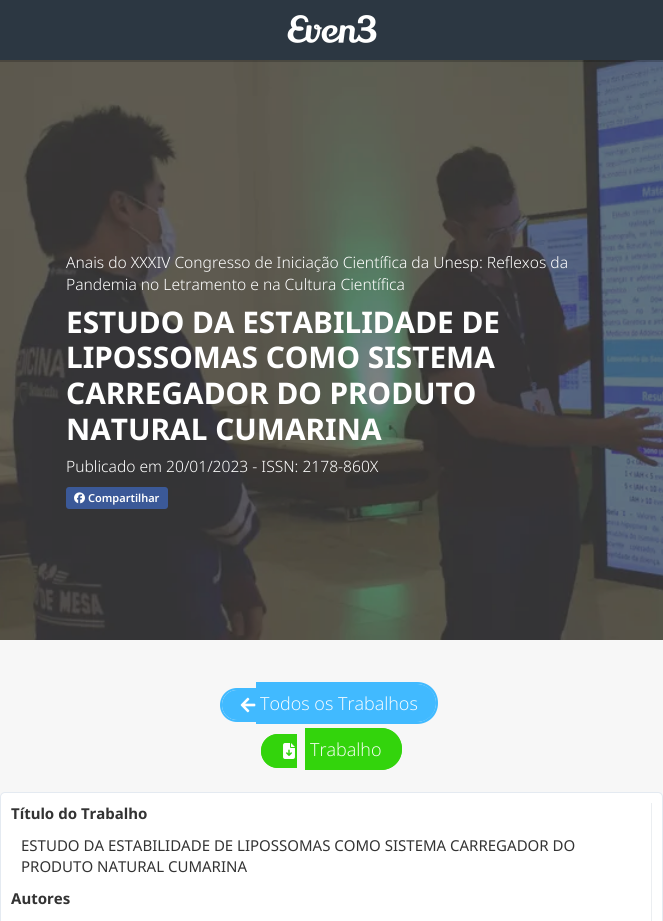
import math
import cairo



def rounded_rect(context, x, y, w, h, r):
    context.new_sub_path()
    for i, (u, v) in enumerate([(x + w - r, y + h - r), (x + r, y + h - r), (x + r, y + r), (x + w - r, y + r)]):
        context.arc(u, v, r, i * math.pi / 2, (i + 1) * math.pi / 2)
    context.close_path()


def draw_image(context, path, x, y, w, h):
    context.save()
    context.set_source_surface(cairo.ImageSurface.create_from_png(path), x, y)
    context.rectangle(x, y, w, h)
    context.fill()
    context.restore()


def draw(context):
    context.set_source_rgb(247 / 255, 247 / 255, 247 / 255)
    context.paint()
    draw_image(context, "images/2.png", 0, 60, 663, 580)
    context.set_source_rgba(0, 0, 0, 0.2)
    context.rectangle(0, 60, 663, 2)
    context.fill()
    context.set_source_rgb(44 / 255, 55 / 255, 66 / 255)
    context.rectangle(0, 0, 663, 60)
    context.fill()
    draw_image(context, "images/1.png", 287, 15, 90, 28)
    context.set_source_rgb(59 / 255, 89 / 255, 152 / 255)
    rounded_rect(context, 66, 487, 102, 22, 3)
    context.fill()
    draw_image(context, "images/3.png", 74, 492, 11, 12)
    context.set_source_rgb(65 / 255, 186 / 255, 1)
    context.new_path()
    context.move_to(237, 690)
    context.line_to(256, 690)
    context.line_to(256, 720)
    context.line_to(237, 720)
    context.curve_to(228.5, 720, 222, 713.5, 222, 705)
    context.curve_to(222, 696.5, 228.5, 690, 237, 690)
    context.close_path()
    context.fill()
    context.set_fill_rule(cairo.FillRule.EVEN_ODD)
    context.new_path()
    context.move_to(237, 688)
    context.line_to(256, 688)
    context.line_to(256, 722)
    context.line_to(237, 722)
    context.curve_to(227.5, 722, 220, 714.5, 220, 705)
    context.curve_to(220, 695.5, 227.5, 688, 237, 688)
    context.close_path()
    context.move_to(237, 690)
    context.line_to(256, 690)
    context.line_to(256, 720)
    context.line_to(237, 720)
    context.curve_to(228.5, 720, 222, 713.5, 222, 705)
    context.curve_to(222, 696.5, 228.5, 690, 237, 690)
    context.close_path()
    context.fill()
    draw_image(context, "images/4.png", 240, 697, 16, 16)
    context.rectangle(256, 682, 4, 42)
    context.fill()
    context.new_path()
    context.move_to(260, 684)
    context.line_to(417, 684)
    context.curve_to(427.5, 684, 436, 692.5, 436, 703)
    context.curve_to(436, 713.5, 427.5, 722, 417, 722)
    context.line_to(260, 722)
    context.close_path()
    context.fill()
    context.new_path()
    context.move_to(260, 682)
    context.line_to(417, 682)
    context.curve_to(429, 682, 438, 691, 438, 703)
    context.curve_to(438, 715, 429, 724, 417, 724)
    context.line_to(260, 724)
    context.close_path()
    context.move_to(260, 684)
    context.line_to(417, 684)
    context.curve_to(427, 684, 436, 693, 436, 703)
    context.curve_to(436, 713, 427, 722, 417, 722)
    context.line_to(260, 722)
    context.close_path()
    context.fill()
    context.set_source_rgb(51 / 255, 212 / 255, 12 / 255)
    context.new_path()
    context.move_to(278, 734)
    context.line_to(297, 734)
    context.line_to(297, 768)
    context.line_to(278, 768)
    context.curve_to(268.5, 768, 261, 760.5, 261, 751)
    context.curve_to(261, 741.5, 268.5, 734, 278, 734)
    context.close_path()
    context.fill()
    context.new_path()
    context.move_to(278, 734)
    context.line_to(297, 734)
    context.line_to(297, 768)
    context.line_to(278, 768)
    context.curve_to(268.5, 768, 261, 760.5, 261, 751)
    context.curve_to(261, 741.5, 268.5, 734, 278, 734)
    context.close_path()
    context.move_to(278, 736)
    context.line_to(297, 736)
    context.line_to(297, 766)
    context.line_to(278, 766)
    context.curve_to(269.5, 766, 263, 759.5, 263, 751)
    context.curve_to(263, 742.5, 269.5, 736, 278, 736)
    context.close_path()
    context.fill()
    draw_image(context, "images/5.png", 283, 743, 12, 16)
    context.rectangle(305, 728, 5, 42)
    context.fill()
    context.new_path()
    context.move_to(310, 728)
    context.line_to(381, 728)
    context.curve_to(392.5, 728, 402, 737.5, 402, 749)
    context.curve_to(402, 760.5, 392.5, 770, 381, 770)
    context.line_to(310, 770)
    context.close_path()
    context.fill()
    context.new_path()
    context.move_to(310, 728)
    context.line_to(381, 728)
    context.curve_to(393, 728, 402, 737, 402, 749)
    context.curve_to(402, 761, 393, 770, 381, 770)
    context.line_to(310, 770)
    context.close_path()
    context.move_to(310, 730)
    context.line_to(381, 730)
    context.curve_to(391, 730, 400, 739, 400, 749)
    context.curve_to(400, 759, 391, 768, 381, 768)
    context.line_to(310, 768)
    context.close_path()
    context.fill()
    context.set_source_rgb(1, 1, 1)
    rounded_rect(context, 0.5, 792.5, 662, 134, 4.5)
    context.fill_preserve()
    context.set_source_rgb(228 / 255, 234 / 255, 241 / 255)
    context.set_line_width(1)
    context.stroke()
    context.set_source_rgb(235 / 255, 238 / 255, 241 / 255)
    context.rectangle(651, 803, 1, 118)
    context.fill()
    context.select_font_face("Noto Sans Light")
    context.set_font_size(15.6)
    context.set_source_rgb(1, 1, 1)
    context.move_to(66, 268)
    context.show_text("Anais do XXXIV Congresso de Iniciação Científica da Unesp: Reflexos da")
    context.move_to(66, 290)
    context.show_text("Pandemia no Letramento e na Cultura Científica")
    context.select_font_face("Noto Sans", cairo.FontSlant.NORMAL, cairo.FontWeight.BOLD)
    context.set_font_size(29.8)
    context.move_to(66, 333)
    context.show_text("ESTUDO DA ESTABILIDADE DE")
    context.move_to(66, 368)
    context.show_text("LIPOSSOMAS COMO SISTEMA")
    context.move_to(66, 404)
    context.show_text("CARREGADOR DO PRODUTO")
    context.move_to(66, 440)
    context.show_text("NATURAL CUMARINA")
    context.select_font_face("Noto Sans Light")
    context.set_font_size(15.6)
    context.move_to(66, 472)
    context.show_text("Publicado em 20/01/2023 - ISSN: 2178-860X")
    context.select_font_face("Noto Sans SemiBold")
    context.set_font_size(11)
    context.move_to(88, 502)
    context.show_text("Compartilhar")
    context.select_font_face("Open Sans Light")
    context.set_font_size(18)
    context.move_to(260, 710)
    context.show_text("Todos os Trabalhos")
    context.move_to(310, 756)
    context.show_text("Trabalho")
    context.select_font_face("Noto Sans", cairo.FontSlant.NORMAL, cairo.FontWeight.BOLD)
    context.set_font_size(15)
    context.set_source_rgb(51 / 255, 51 / 255, 51 / 255)
    context.move_to(11, 819)
    context.show_text("Título do Trabalho")
    context.select_font_face("Noto Sans")
    context.move_to(21, 851)
    context.show_text("ESTUDO DA ESTABILIDADE DE LIPOSSOMAS COMO SISTEMA CARREGADOR DO")
    context.move_to(21, 872)
    context.show_text("PRODUTO NATURAL CUMARINA")
    context.select_font_face("Noto Sans", cairo.FontSlant.NORMAL, cairo.FontWeight.BOLD)
    context.move_to(11, 904)
    context.show_text("Autores")


surface = cairo.ImageSurface(cairo.Format.RGB24, 663, 921)
context = cairo.Context(surface)
options = cairo.FontOptions()
options.set_hint_metrics(cairo.HintMetrics.OFF)
options.set_hint_style(cairo.HintStyle.NONE)
context.set_font_options(options)
context.set_miter_limit(4)
draw(context)
surface.write_to_png("out.png")
